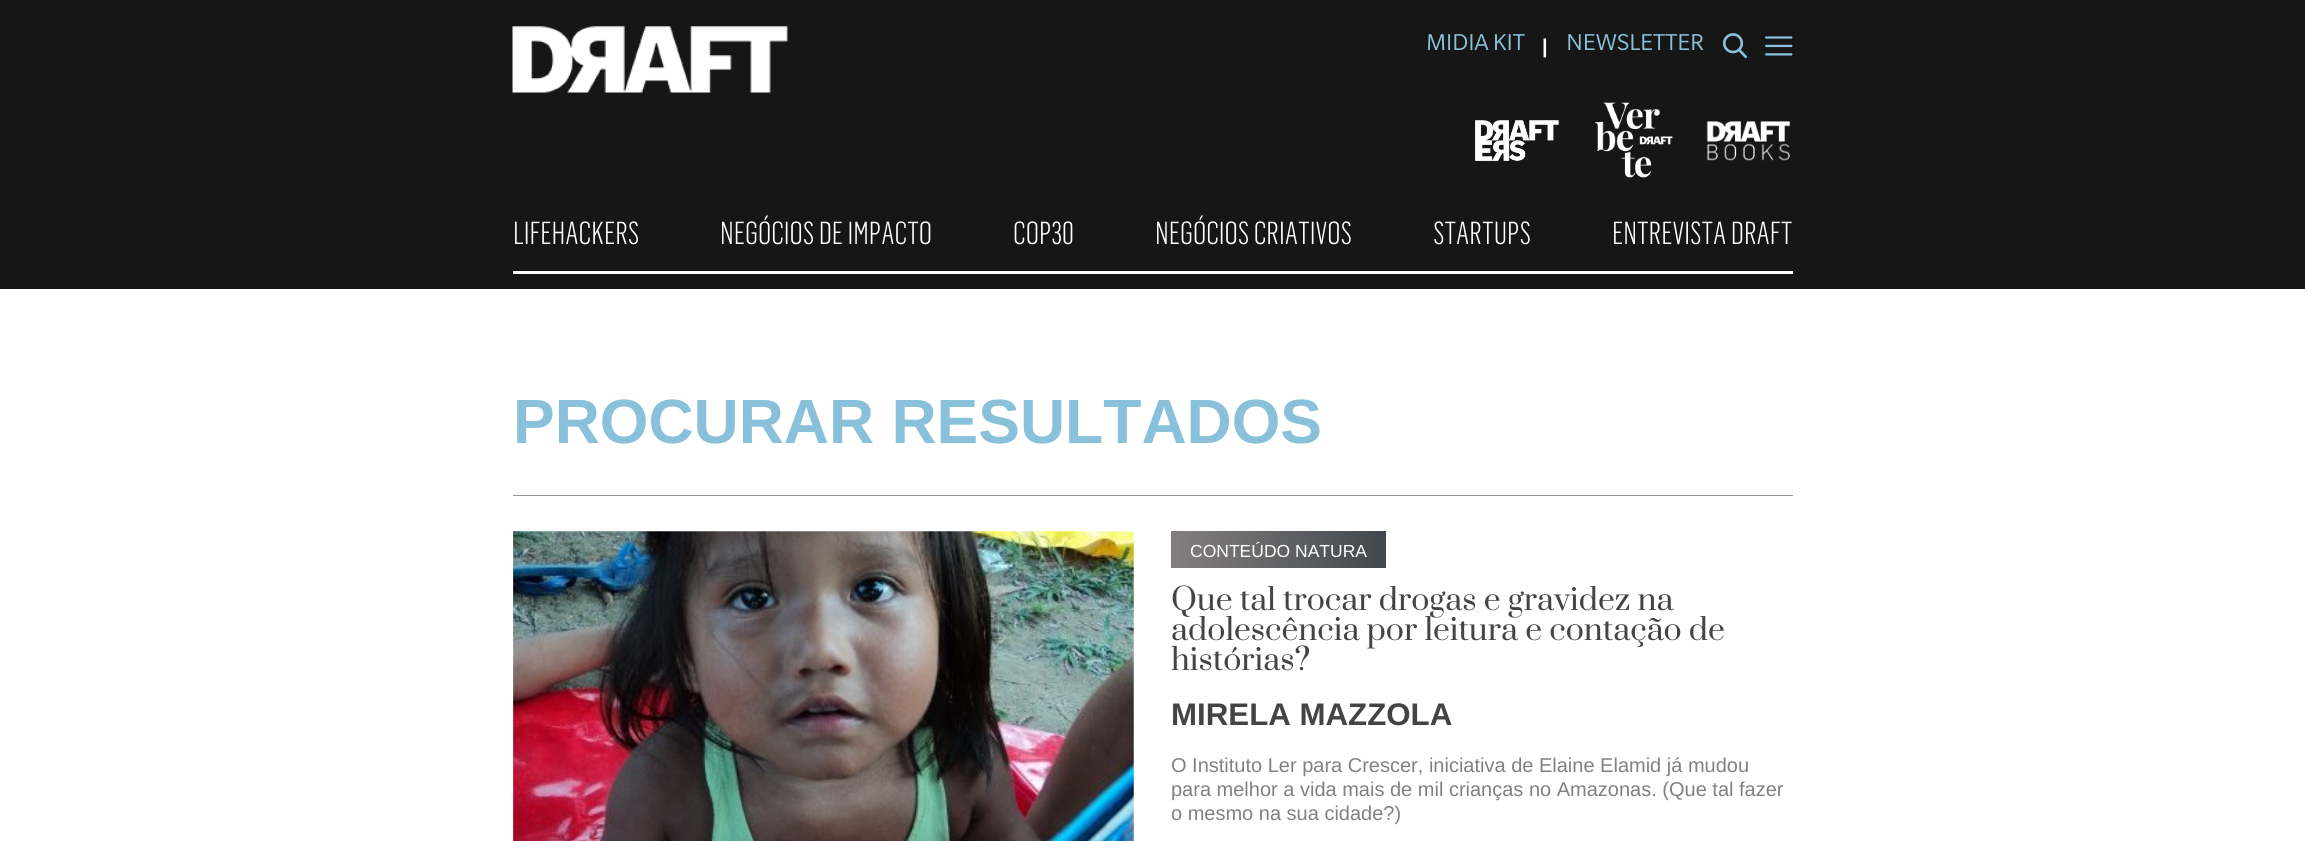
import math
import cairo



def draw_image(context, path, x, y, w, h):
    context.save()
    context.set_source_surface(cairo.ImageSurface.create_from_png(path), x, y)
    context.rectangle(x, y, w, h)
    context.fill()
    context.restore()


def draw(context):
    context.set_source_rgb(1, 1, 1)
    context.paint()
    context.set_source_rgb(22 / 255, 22 / 255, 22 / 255)
    context.rectangle(0, 0, 2305, 289)
    context.fill()
    draw_image(context, "images/1.png", 512, 26, 276, 67)
    draw_image(context, "images/2.png", 1428, 34, 97, 16)
    draw_image(context, "images/3.png", 1568, 33, 136, 18)
    draw_image(context, "images/4.png", 1722, 33, 25, 26)
    draw_image(context, "images/5.png", 1765, 36, 28, 20)
    draw_image(context, "images/6.png", 1475, 120, 84, 41)
    draw_image(context, "images/7.png", 1595, 102, 78, 76)
    draw_image(context, "images/8.png", 1706, 121, 84, 40)
    context.set_source_rgb(1, 1, 1)
    context.rectangle(513, 271, 1280, 3)
    context.fill()
    context.set_source_rgb(146 / 255, 146 / 255, 146 / 255)
    context.rectangle(513, 495, 1280, 1)
    context.fill()
    draw_image(context, "images/9.png", 513, 531, 621, 310)
    gradient = cairo.LinearGradient(1171, 549, 1386, 549)
    gradient.add_color_stop_rgba(0, 132 / 255, 127 / 255, 127 / 255, 1)
    gradient.add_color_stop_rgba(1, 65 / 255, 71 / 255, 76 / 255, 1)
    context.set_source(gradient)
    context.rectangle(1171, 531, 215, 37)
    context.fill()
    context.select_font_face("Liberation Sans", cairo.FontSlant.NORMAL, cairo.FontWeight.BOLD)
    context.set_font_size(20)
    context.set_source_rgb(1, 1, 1)
    context.move_to(1542, 53)
    context.show_text("|")
    context.select_font_face("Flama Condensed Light")
    context.set_font_size(31.25)
    context.move_to(513, 244)
    context.show_text("LIFEHACKERS")
    context.move_to(720, 244)
    context.show_text("NEGÓCIOS DE IMPACTO")
    context.move_to(1013, 244)
    context.show_text("COP30")
    context.move_to(1155, 244)
    context.show_text("NEGÓCIOS CRIATIVOS")
    context.move_to(1433, 244)
    context.show_text("STARTUPS")
    context.move_to(1612, 244)
    context.show_text("ENTREVISTA DRAFT")
    context.select_font_face("Liberation Sans", cairo.FontSlant.NORMAL, cairo.FontWeight.BOLD)
    context.set_font_size(62.5)
    context.set_source_rgb(137 / 255, 193 / 255, 219 / 255)
    context.move_to(513, 443)
    context.show_text("PROCURAR RESULTADOS")
    context.select_font_face("Liberation Sans")
    context.set_font_size(17.5)
    context.set_source_rgb(1, 1, 1)
    context.move_to(1190, 557)
    context.show_text("CONTEÚDO NATURA")
    context.select_font_face("Prata")
    context.set_font_size(30)
    context.set_source_rgb(68 / 255, 68 / 255, 68 / 255)
    context.move_to(1171, 610)
    context.show_text("Que tal trocar drogas e gravidez na")
    context.move_to(1171, 640)
    context.show_text("adolescência por leitura e contação de")
    context.move_to(1171, 670)
    context.show_text("histórias?")
    context.select_font_face("Liberation Sans", cairo.FontSlant.NORMAL, cairo.FontWeight.BOLD)
    context.set_font_size(31.25)
    context.move_to(1171, 725)
    context.show_text("MIRELA MAZZOLA")
    context.select_font_face("Liberation Sans")
    context.set_font_size(20)
    context.set_source_rgb(130 / 255, 129 / 255, 129 / 255)
    context.move_to(1171, 772)
    context.show_text("O Instituto Ler para Crescer, iniciativa de Elaine Elamid já mudou")
    context.move_to(1171, 796)
    context.show_text("para melhor a vida mais de mil crianças no Amazonas. (Que tal fazer")
    context.move_to(1171, 820)
    context.show_text("o mesmo na sua cidade?)")


surface = cairo.ImageSurface(cairo.Format.RGB24, 2305, 841)
context = cairo.Context(surface)
options = cairo.FontOptions()
options.set_hint_metrics(cairo.HintMetrics.OFF)
options.set_hint_style(cairo.HintStyle.NONE)
context.set_font_options(options)
context.set_miter_limit(4)
draw(context)
surface.write_to_png("out.png")
